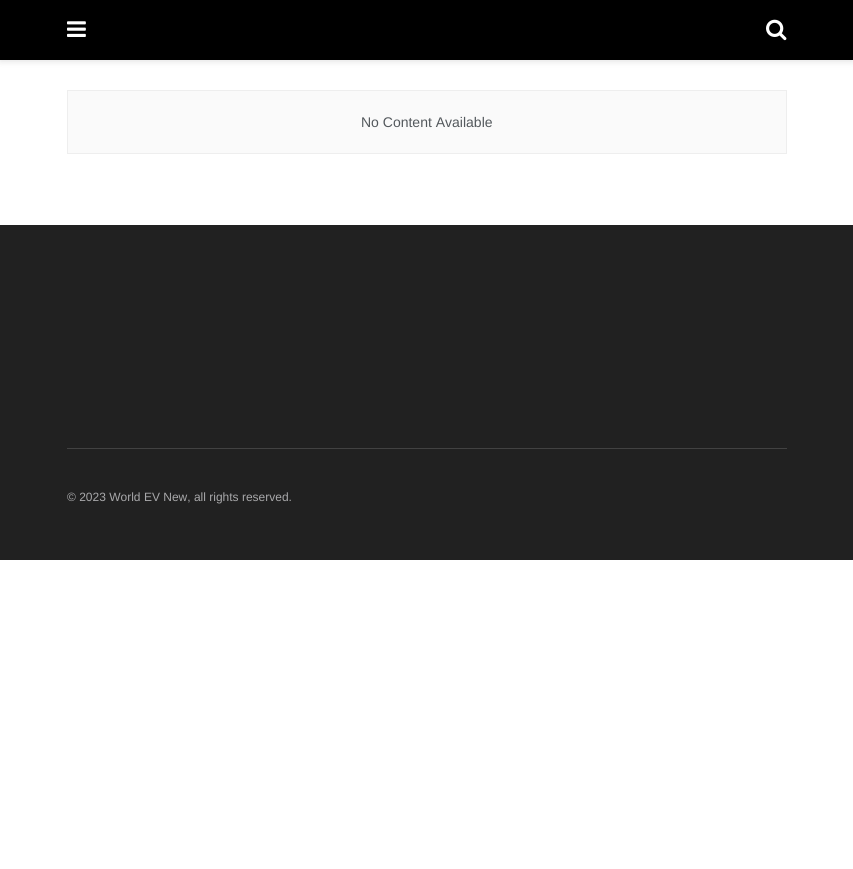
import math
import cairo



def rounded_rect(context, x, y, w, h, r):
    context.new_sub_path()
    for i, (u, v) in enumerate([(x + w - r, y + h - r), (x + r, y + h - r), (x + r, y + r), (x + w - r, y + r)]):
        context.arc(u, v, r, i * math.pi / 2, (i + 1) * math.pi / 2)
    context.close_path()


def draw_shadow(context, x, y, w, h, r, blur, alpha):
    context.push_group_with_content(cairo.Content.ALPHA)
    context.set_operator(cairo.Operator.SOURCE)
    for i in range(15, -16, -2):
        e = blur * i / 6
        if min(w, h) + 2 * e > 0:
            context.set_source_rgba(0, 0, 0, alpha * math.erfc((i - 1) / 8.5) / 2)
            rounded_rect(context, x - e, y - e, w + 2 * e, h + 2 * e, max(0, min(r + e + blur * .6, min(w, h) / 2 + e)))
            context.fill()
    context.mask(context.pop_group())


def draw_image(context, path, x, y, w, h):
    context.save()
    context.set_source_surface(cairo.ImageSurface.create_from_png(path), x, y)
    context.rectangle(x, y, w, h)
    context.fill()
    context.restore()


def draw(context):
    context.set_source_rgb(1, 1, 1)
    context.paint()
    context.set_source_rgb(0, 0, 0)
    draw_shadow(context, 0, 2, 853, 60, 0, 3, 0.1)
    context.set_source_rgb(0, 0, 0)
    context.rectangle(0, 0, 853, 60)
    context.fill()
    draw_image(context, "images/1.png", 67, 21, 19, 16)
    draw_image(context, "images/2.png", 766, 19, 21, 22)
    context.set_source_rgb(250 / 255, 250 / 255, 250 / 255)
    context.rectangle(67.5, 90.5, 719, 63)
    context.fill_preserve()
    context.set_source_rgb(238 / 255, 238 / 255, 238 / 255)
    context.set_line_width(1)
    context.stroke()
    context.set_source_rgb(33 / 255, 33 / 255, 33 / 255)
    context.rectangle(0, 225, 853, 335)
    context.fill()
    context.set_source_rgb(66 / 255, 66 / 255, 66 / 255)
    context.rectangle(67, 448, 720, 1)
    context.fill()
    context.select_font_face("Liberation Sans")
    context.set_font_size(14)
    context.set_source_rgb(83 / 255, 88 / 255, 92 / 255)
    context.move_to(361, 127)
    context.show_text("No Content Available")
    context.set_font_size(12)
    context.set_source_rgb(168 / 255, 168 / 255, 170 / 255)
    context.move_to(67, 501)
    context.show_text("© 2023 World EV New, all rights reserved.")


surface = cairo.ImageSurface(cairo.Format.RGB24, 853, 869)
context = cairo.Context(surface)
options = cairo.FontOptions()
options.set_hint_metrics(cairo.HintMetrics.OFF)
options.set_hint_style(cairo.HintStyle.NONE)
context.set_font_options(options)
context.set_miter_limit(4)
draw(context)
surface.write_to_png("out.png")
